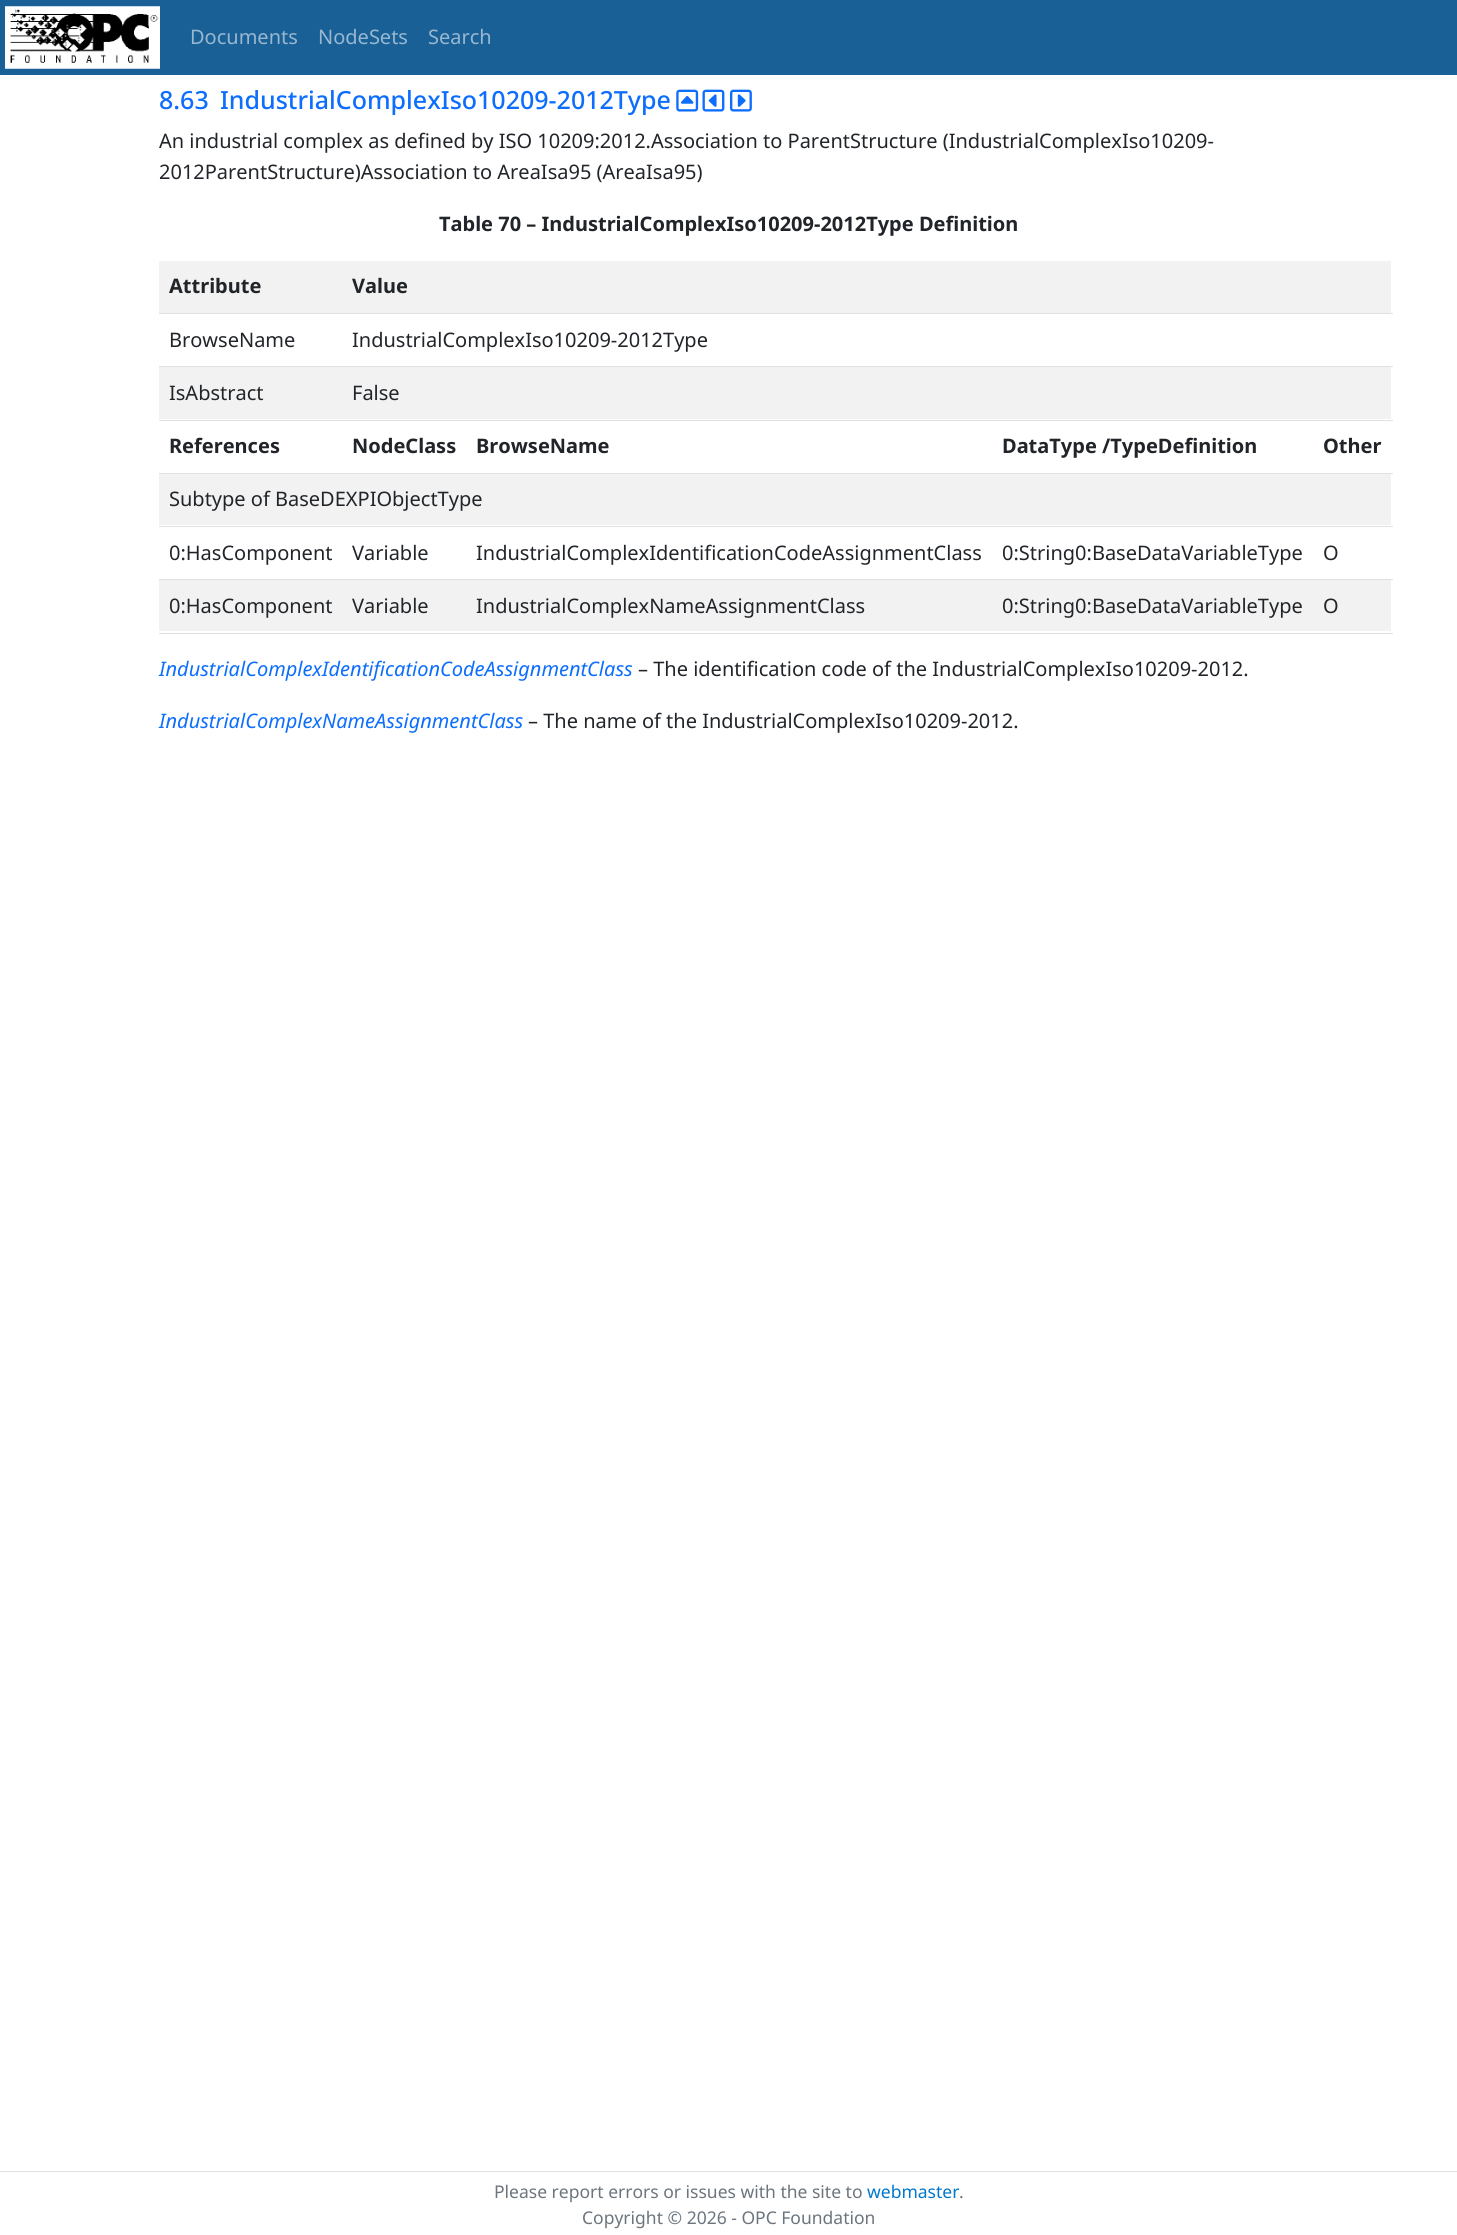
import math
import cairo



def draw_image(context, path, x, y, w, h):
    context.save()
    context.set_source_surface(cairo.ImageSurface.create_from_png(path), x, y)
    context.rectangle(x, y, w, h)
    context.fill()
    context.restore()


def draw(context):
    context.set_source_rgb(1, 1, 1)
    context.paint()
    context.set_source_rgb(25 / 255, 96 / 255, 150 / 255)
    context.rectangle(0, 0, 1457, 75)
    context.fill()
    draw_image(context, "images/1.png", 5, 6, 155, 63)
    draw_image(context, "images/2.png", 676, 89, 23, 23)
    draw_image(context, "images/3.png", 702, 89, 23, 23)
    draw_image(context, "images/4.png", 730, 89, 22, 23)
    context.set_source_rgb(242 / 255, 242 / 255, 242 / 255)
    context.rectangle(159, 261, 1232, 52)
    context.fill()
    context.set_source_rgb(222 / 255, 226 / 255, 230 / 255)
    context.rectangle(159, 313, 1234, 1)
    context.fill()
    context.rectangle(159, 366, 1234, 1)
    context.fill()
    context.set_source_rgb(242 / 255, 242 / 255, 242 / 255)
    context.rectangle(159, 367, 1232, 52)
    context.fill()
    context.set_source_rgb(222 / 255, 226 / 255, 230 / 255)
    context.rectangle(159, 420, 1234, 1)
    context.fill()
    context.rectangle(159, 473, 1234, 1)
    context.fill()
    context.set_source_rgb(242 / 255, 242 / 255, 242 / 255)
    context.rectangle(159, 474, 1232, 51)
    context.fill()
    context.set_source_rgb(222 / 255, 226 / 255, 230 / 255)
    context.rectangle(159, 526, 1234, 1)
    context.fill()
    context.rectangle(159, 579, 1234, 1)
    context.fill()
    context.set_source_rgb(242 / 255, 242 / 255, 242 / 255)
    context.rectangle(159, 580, 1232, 51)
    context.fill()
    context.set_source_rgb(222 / 255, 226 / 255, 230 / 255)
    context.rectangle(159, 633, 1234, 1)
    context.fill()
    context.rectangle(0, 2171, 1457, 1)
    context.fill()
    context.select_font_face("Noto Sans")
    context.set_font_size(20)
    context.set_source_rgb(152 / 255, 183 / 255, 208 / 255)
    context.move_to(190, 44)
    context.show_text("Documents")
    context.move_to(318, 44)
    context.show_text("NodeSets")
    context.move_to(428, 44)
    context.show_text("Search")
    context.select_font_face("Noto Sans Medium")
    context.set_font_size(25)
    context.set_source_rgb(13 / 255, 110 / 255, 253 / 255)
    context.move_to(159, 109)
    context.show_text("8.63")
    context.move_to(220, 109)
    context.show_text("IndustrialComplexIso10209-2012Type")
    context.select_font_face("Noto Sans")
    context.set_font_size(20)
    context.set_source_rgb(33 / 255, 37 / 255, 41 / 255)
    context.move_to(159, 148)
    context.show_text("An industrial complex as defined by ISO 10209:2012.Association to ParentStructure (IndustrialComplexIso10209-")
    context.move_to(159, 179)
    context.show_text("2012ParentStructure)Association to AreaIsa95 (AreaIsa95)")
    context.select_font_face("Noto Sans", cairo.FontSlant.NORMAL, cairo.FontWeight.BOLD)
    context.move_to(439, 231)
    context.show_text("Table 70 – IndustrialComplexIso10209-2012Type Definition")
    context.move_to(169, 293)
    context.show_text("Attribute")
    context.move_to(352, 293)
    context.show_text("Value")
    context.select_font_face("Noto Sans")
    context.move_to(169, 347)
    context.show_text("BrowseName")
    context.move_to(352, 347)
    context.show_text("IndustrialComplexIso10209-2012Type")
    context.move_to(169, 400)
    context.show_text("IsAbstract")
    context.move_to(352, 400)
    context.show_text("False")
    context.select_font_face("Noto Sans", cairo.FontSlant.NORMAL, cairo.FontWeight.BOLD)
    context.move_to(169, 453)
    context.show_text("References")
    context.move_to(352, 453)
    context.show_text("NodeClass")
    context.move_to(476, 453)
    context.show_text("BrowseName")
    context.move_to(1002, 453)
    context.show_text("DataType /TypeDefinition")
    context.move_to(1323, 453)
    context.show_text("Other")
    context.select_font_face("Noto Sans")
    context.move_to(169, 506)
    context.show_text("Subtype of BaseDEXPIObjectType")
    context.move_to(169, 560)
    context.show_text("0:HasComponent")
    context.move_to(352, 560)
    context.show_text("Variable")
    context.move_to(476, 560)
    context.show_text("IndustrialComplexIdentificationCodeAssignmentClass")
    context.move_to(1002, 560)
    context.show_text("0:String0:BaseDataVariableType")
    context.move_to(1323, 560)
    context.show_text("O")
    context.move_to(169, 613)
    context.show_text("0:HasComponent")
    context.move_to(352, 613)
    context.show_text("Variable")
    context.move_to(476, 613)
    context.show_text("IndustrialComplexNameAssignmentClass")
    context.move_to(1002, 613)
    context.show_text("0:String0:BaseDataVariableType")
    context.move_to(1323, 613)
    context.show_text("O")
    context.select_font_face("Noto Sans", cairo.FontSlant.ITALIC)
    context.set_source_rgb(13 / 255, 110 / 255, 253 / 255)
    context.move_to(159, 676)
    context.show_text("IndustrialComplexIdentificationCodeAssignmentClass")
    context.select_font_face("Noto Sans")
    context.set_source_rgb(33 / 255, 37 / 255, 41 / 255)
    context.move_to(638, 676)
    context.show_text("– The identification code of the IndustrialComplexIso10209-2012.")
    context.select_font_face("Noto Sans", cairo.FontSlant.ITALIC)
    context.set_source_rgb(13 / 255, 110 / 255, 253 / 255)
    context.move_to(159, 728)
    context.show_text("IndustrialComplexNameAssignmentClass")
    context.select_font_face("Noto Sans")
    context.set_source_rgb(33 / 255, 37 / 255, 41 / 255)
    context.move_to(528, 728)
    context.show_text("– The name of the IndustrialComplexIso10209-2012.")
    context.set_font_size(17.5)
    context.set_source_rgb(108 / 255, 117 / 255, 125 / 255)
    context.move_to(494, 2198)
    context.show_text("Please report errors or issues with the site to")
    context.set_source_rgb(0, 119 / 255, 204 / 255)
    context.move_to(867, 2198)
    context.show_text("webmaster")
    context.set_source_rgb(108 / 255, 117 / 255, 125 / 255)
    context.move_to(959, 2198)
    context.show_text(".")
    context.move_to(582, 2224)
    context.show_text("Copyright © 2026 - OPC Foundation")


surface = cairo.ImageSurface(cairo.Format.RGB24, 1457, 2235)
context = cairo.Context(surface)
options = cairo.FontOptions()
options.set_hint_metrics(cairo.HintMetrics.OFF)
options.set_hint_style(cairo.HintStyle.NONE)
context.set_font_options(options)
context.set_miter_limit(4)
draw(context)
surface.write_to_png("out.png")
